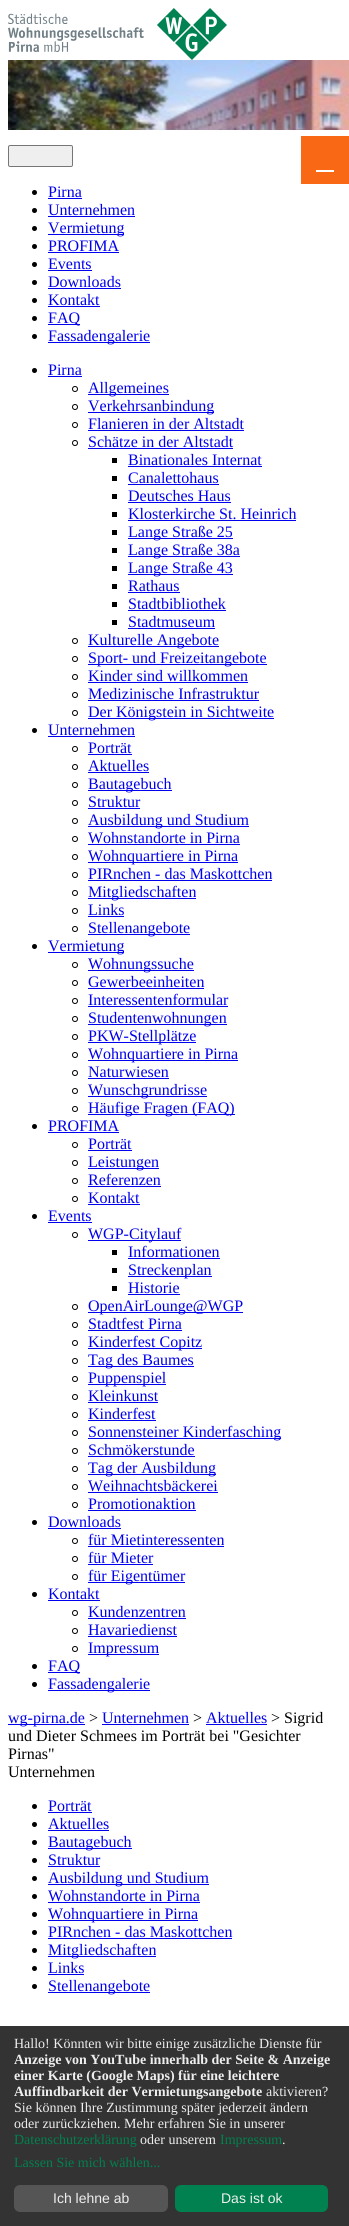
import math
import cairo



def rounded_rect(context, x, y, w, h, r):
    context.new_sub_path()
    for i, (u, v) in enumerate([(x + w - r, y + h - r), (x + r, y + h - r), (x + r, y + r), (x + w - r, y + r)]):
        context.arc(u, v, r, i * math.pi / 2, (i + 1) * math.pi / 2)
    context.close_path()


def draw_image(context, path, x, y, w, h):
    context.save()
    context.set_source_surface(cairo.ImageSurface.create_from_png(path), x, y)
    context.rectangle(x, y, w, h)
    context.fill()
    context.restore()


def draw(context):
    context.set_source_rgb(1, 1, 1)
    context.paint()
    context.set_source_rgb(249 / 255, 105 / 255, 21 / 255)
    context.rectangle(301, 136, 48, 48)
    context.fill()
    context.set_source_rgb(1, 1, 1)
    context.rectangle(316, 170, 18, 2)
    context.fill()
    draw_image(context, "images/1.png", 8, 8, 219, 52)
    draw_image(context, "images/2.png", 8, 60, 341, 70)
    context.set_source_rgb(239 / 255, 239 / 255, 239 / 255)
    rounded_rect(context, 8.5, 145.5, 64, 21, 1.5)
    context.fill_preserve()
    context.set_source_rgb(118 / 255, 118 / 255, 118 / 255)
    context.set_line_width(1)
    context.stroke()
    context.set_source_rgb(0, 0, 0)
    context.arc(34.5, 192.5, 2.5, 0, 2 * math.pi)
    context.fill()
    context.set_source_rgb(0, 0, 238 / 255)
    context.rectangle(48, 198, 34, 1)
    context.fill()
    context.set_source_rgb(0, 0, 0)
    context.arc(34.5, 210.5, 2.5, 0, 2 * math.pi)
    context.fill()
    context.set_source_rgb(0, 0, 238 / 255)
    context.rectangle(48, 216, 87, 1)
    context.fill()
    context.set_source_rgb(0, 0, 0)
    context.arc(34.5, 228.5, 2.5, 0, 2 * math.pi)
    context.fill()
    context.set_source_rgb(0, 0, 238 / 255)
    context.rectangle(48, 234, 76, 1)
    context.fill()
    context.set_source_rgb(0, 0, 0)
    context.arc(34.5, 246.5, 2.5, 0, 2 * math.pi)
    context.fill()
    context.set_source_rgb(0, 0, 238 / 255)
    context.rectangle(48, 252, 71, 1)
    context.fill()
    context.set_source_rgb(0, 0, 0)
    context.arc(34.5, 264.5, 2.5, 0, 2 * math.pi)
    context.fill()
    context.set_source_rgb(0, 0, 238 / 255)
    context.rectangle(48, 270, 44, 1)
    context.fill()
    context.set_source_rgb(0, 0, 0)
    context.arc(34.5, 282.5, 2.5, 0, 2 * math.pi)
    context.fill()
    context.set_source_rgb(0, 0, 238 / 255)
    context.rectangle(48, 288, 73, 1)
    context.fill()
    context.set_source_rgb(0, 0, 0)
    context.arc(34.5, 300.5, 2.5, 0, 2 * math.pi)
    context.fill()
    context.set_source_rgb(0, 0, 238 / 255)
    context.rectangle(48, 306, 52, 1)
    context.fill()
    context.set_source_rgb(0, 0, 0)
    context.arc(34.5, 318.5, 2.5, 0, 2 * math.pi)
    context.fill()
    context.set_source_rgb(0, 0, 238 / 255)
    context.rectangle(48, 324, 32, 1)
    context.fill()
    context.set_source_rgb(0, 0, 0)
    context.arc(34.5, 336.5, 2.5, 0, 2 * math.pi)
    context.fill()
    context.set_source_rgb(0, 0, 238 / 255)
    context.rectangle(48, 342, 102, 1)
    context.fill()
    context.set_source_rgb(0, 0, 0)
    context.arc(34.5, 370.5, 2.5, 0, 2 * math.pi)
    context.fill()
    context.set_source_rgb(0, 0, 238 / 255)
    context.rectangle(48, 376, 34, 1)
    context.fill()
    context.arc(75, 389, 2.5, 0, 2 * math.pi)
    context.set_source_rgb(0, 0, 0)
    context.stroke()
    context.set_source_rgb(0, 0, 238 / 255)
    context.rectangle(88, 394, 81, 1)
    context.fill()
    context.arc(75, 407, 2.5, 0, 2 * math.pi)
    context.set_source_rgb(0, 0, 0)
    context.stroke()
    context.set_source_rgb(0, 0, 238 / 255)
    context.rectangle(88, 412, 126, 1)
    context.fill()
    context.arc(75, 425, 2.5, 0, 2 * math.pi)
    context.set_source_rgb(0, 0, 0)
    context.stroke()
    context.set_source_rgb(0, 0, 238 / 255)
    context.rectangle(88, 430, 156, 1)
    context.fill()
    context.arc(75, 443, 2.5, 0, 2 * math.pi)
    context.set_source_rgb(0, 0, 0)
    context.stroke()
    context.set_source_rgb(0, 0, 238 / 255)
    context.rectangle(88, 448, 145, 1)
    context.fill()
    context.set_source_rgb(0, 0, 0)
    context.rectangle(112, 458, 5, 5)
    context.fill()
    context.set_source_rgb(0, 0, 238 / 255)
    context.rectangle(128, 466, 134, 1)
    context.fill()
    context.set_source_rgb(0, 0, 0)
    context.rectangle(112, 476, 5, 5)
    context.fill()
    context.set_source_rgb(0, 0, 238 / 255)
    context.rectangle(128, 484, 91, 1)
    context.fill()
    context.set_source_rgb(0, 0, 0)
    context.rectangle(112, 494, 5, 5)
    context.fill()
    context.set_source_rgb(0, 0, 238 / 255)
    context.rectangle(128, 502, 103, 1)
    context.fill()
    context.set_source_rgb(0, 0, 0)
    context.rectangle(112, 512, 5, 5)
    context.fill()
    context.set_source_rgb(0, 0, 238 / 255)
    context.rectangle(128, 520, 168, 1)
    context.fill()
    context.set_source_rgb(0, 0, 0)
    context.rectangle(112, 530, 5, 5)
    context.fill()
    context.set_source_rgb(0, 0, 238 / 255)
    context.rectangle(128, 538, 105, 1)
    context.fill()
    context.set_source_rgb(0, 0, 0)
    context.rectangle(112, 548, 5, 5)
    context.fill()
    context.set_source_rgb(0, 0, 238 / 255)
    context.rectangle(128, 556, 112, 1)
    context.fill()
    context.set_source_rgb(0, 0, 0)
    context.rectangle(112, 566, 5, 5)
    context.fill()
    context.set_source_rgb(0, 0, 238 / 255)
    context.rectangle(128, 574, 105, 1)
    context.fill()
    context.set_source_rgb(0, 0, 0)
    context.rectangle(112, 584, 5, 5)
    context.fill()
    context.set_source_rgb(0, 0, 238 / 255)
    context.rectangle(128, 592, 52, 1)
    context.fill()
    context.set_source_rgb(0, 0, 0)
    context.rectangle(112, 602, 5, 5)
    context.fill()
    context.set_source_rgb(0, 0, 238 / 255)
    context.rectangle(128, 610, 98, 1)
    context.fill()
    context.set_source_rgb(0, 0, 0)
    context.rectangle(112, 620, 5, 5)
    context.fill()
    context.set_source_rgb(0, 0, 238 / 255)
    context.rectangle(128, 628, 87, 1)
    context.fill()
    context.arc(75, 641, 2.5, 0, 2 * math.pi)
    context.set_source_rgb(0, 0, 0)
    context.stroke()
    context.set_source_rgb(0, 0, 238 / 255)
    context.rectangle(88, 646, 131, 1)
    context.fill()
    context.arc(75, 659, 2.5, 0, 2 * math.pi)
    context.set_source_rgb(0, 0, 0)
    context.stroke()
    context.set_source_rgb(0, 0, 238 / 255)
    context.rectangle(88, 664, 179, 1)
    context.fill()
    context.arc(75, 677, 2.5, 0, 2 * math.pi)
    context.set_source_rgb(0, 0, 0)
    context.stroke()
    context.set_source_rgb(0, 0, 238 / 255)
    context.rectangle(88, 682, 160, 1)
    context.fill()
    context.arc(75, 695, 2.5, 0, 2 * math.pi)
    context.set_source_rgb(0, 0, 0)
    context.stroke()
    context.set_source_rgb(0, 0, 238 / 255)
    context.rectangle(88, 700, 171, 1)
    context.fill()
    context.arc(75, 713, 2.5, 0, 2 * math.pi)
    context.set_source_rgb(0, 0, 0)
    context.stroke()
    context.set_source_rgb(0, 0, 238 / 255)
    context.rectangle(88, 718, 186, 1)
    context.fill()
    context.set_source_rgb(0, 0, 0)
    context.arc(34.5, 730.5, 2.5, 0, 2 * math.pi)
    context.fill()
    context.set_source_rgb(0, 0, 238 / 255)
    context.rectangle(48, 736, 87, 1)
    context.fill()
    context.arc(75, 749, 2.5, 0, 2 * math.pi)
    context.set_source_rgb(0, 0, 0)
    context.stroke()
    context.set_source_rgb(0, 0, 238 / 255)
    context.rectangle(88, 754, 44, 1)
    context.fill()
    context.arc(75, 767, 2.5, 0, 2 * math.pi)
    context.set_source_rgb(0, 0, 0)
    context.stroke()
    context.set_source_rgb(0, 0, 238 / 255)
    context.rectangle(88, 772, 61, 1)
    context.fill()
    context.arc(75, 785, 2.5, 0, 2 * math.pi)
    context.set_source_rgb(0, 0, 0)
    context.stroke()
    context.set_source_rgb(0, 0, 238 / 255)
    context.rectangle(88, 790, 84, 1)
    context.fill()
    context.arc(75, 803, 2.5, 0, 2 * math.pi)
    context.set_source_rgb(0, 0, 0)
    context.stroke()
    context.set_source_rgb(0, 0, 238 / 255)
    context.rectangle(88, 808, 52, 1)
    context.fill()
    context.arc(75, 821, 2.5, 0, 2 * math.pi)
    context.set_source_rgb(0, 0, 0)
    context.stroke()
    context.set_source_rgb(0, 0, 238 / 255)
    context.rectangle(88, 826, 161, 1)
    context.fill()
    context.arc(75, 839, 2.5, 0, 2 * math.pi)
    context.set_source_rgb(0, 0, 0)
    context.stroke()
    context.set_source_rgb(0, 0, 238 / 255)
    context.rectangle(88, 844, 152, 1)
    context.fill()
    context.arc(75, 857, 2.5, 0, 2 * math.pi)
    context.set_source_rgb(0, 0, 0)
    context.stroke()
    context.set_source_rgb(0, 0, 238 / 255)
    context.rectangle(88, 862, 150, 1)
    context.fill()
    context.arc(75, 875, 2.5, 0, 2 * math.pi)
    context.set_source_rgb(0, 0, 0)
    context.stroke()
    context.set_source_rgb(0, 0, 238 / 255)
    context.rectangle(88, 880, 184, 1)
    context.fill()
    context.arc(75, 893, 2.5, 0, 2 * math.pi)
    context.set_source_rgb(0, 0, 0)
    context.stroke()
    context.set_source_rgb(0, 0, 238 / 255)
    context.rectangle(88, 898, 108, 1)
    context.fill()
    context.arc(75, 911, 2.5, 0, 2 * math.pi)
    context.set_source_rgb(0, 0, 0)
    context.stroke()
    context.set_source_rgb(0, 0, 238 / 255)
    context.rectangle(88, 916, 36, 1)
    context.fill()
    context.arc(75, 929, 2.5, 0, 2 * math.pi)
    context.set_source_rgb(0, 0, 0)
    context.stroke()
    context.set_source_rgb(0, 0, 238 / 255)
    context.rectangle(88, 934, 102, 1)
    context.fill()
    context.set_source_rgb(0, 0, 0)
    context.arc(34.5, 946.5, 2.5, 0, 2 * math.pi)
    context.fill()
    context.set_source_rgb(0, 0, 238 / 255)
    context.rectangle(48, 952, 76, 1)
    context.fill()
    context.arc(75, 965, 2.5, 0, 2 * math.pi)
    context.set_source_rgb(0, 0, 0)
    context.stroke()
    context.set_source_rgb(0, 0, 238 / 255)
    context.rectangle(88, 970, 106, 1)
    context.fill()
    context.arc(75, 983, 2.5, 0, 2 * math.pi)
    context.set_source_rgb(0, 0, 0)
    context.stroke()
    context.set_source_rgb(0, 0, 238 / 255)
    context.rectangle(88, 988, 116, 1)
    context.fill()
    context.arc(75, 1001, 2.5, 0, 2 * math.pi)
    context.set_source_rgb(0, 0, 0)
    context.stroke()
    context.set_source_rgb(0, 0, 238 / 255)
    context.rectangle(88, 1006, 140, 1)
    context.fill()
    context.arc(75, 1019, 2.5, 0, 2 * math.pi)
    context.set_source_rgb(0, 0, 0)
    context.stroke()
    context.set_source_rgb(0, 0, 238 / 255)
    context.rectangle(88, 1024, 139, 1)
    context.fill()
    context.arc(75, 1037, 2.5, 0, 2 * math.pi)
    context.set_source_rgb(0, 0, 0)
    context.stroke()
    context.set_source_rgb(0, 0, 238 / 255)
    context.rectangle(88, 1042, 108, 1)
    context.fill()
    context.arc(75, 1055, 2.5, 0, 2 * math.pi)
    context.set_source_rgb(0, 0, 0)
    context.stroke()
    context.set_source_rgb(0, 0, 238 / 255)
    context.rectangle(88, 1060, 150, 1)
    context.fill()
    context.arc(75, 1073, 2.5, 0, 2 * math.pi)
    context.set_source_rgb(0, 0, 0)
    context.stroke()
    context.set_source_rgb(0, 0, 238 / 255)
    context.rectangle(88, 1078, 81, 1)
    context.fill()
    context.arc(75, 1091, 2.5, 0, 2 * math.pi)
    context.set_source_rgb(0, 0, 0)
    context.stroke()
    context.set_source_rgb(0, 0, 238 / 255)
    context.rectangle(88, 1096, 119, 1)
    context.fill()
    context.arc(75, 1109, 2.5, 0, 2 * math.pi)
    context.set_source_rgb(0, 0, 0)
    context.stroke()
    context.set_source_rgb(0, 0, 238 / 255)
    context.rectangle(88, 1114, 147, 1)
    context.fill()
    context.set_source_rgb(0, 0, 0)
    context.arc(34.5, 1126.5, 2.5, 0, 2 * math.pi)
    context.fill()
    context.set_source_rgb(0, 0, 238 / 255)
    context.rectangle(48, 1132, 71, 1)
    context.fill()
    context.arc(75, 1145, 2.5, 0, 2 * math.pi)
    context.set_source_rgb(0, 0, 0)
    context.stroke()
    context.set_source_rgb(0, 0, 238 / 255)
    context.rectangle(88, 1150, 44, 1)
    context.fill()
    context.arc(75, 1163, 2.5, 0, 2 * math.pi)
    context.set_source_rgb(0, 0, 0)
    context.stroke()
    context.set_source_rgb(0, 0, 238 / 255)
    context.rectangle(88, 1168, 71, 1)
    context.fill()
    context.arc(75, 1181, 2.5, 0, 2 * math.pi)
    context.set_source_rgb(0, 0, 0)
    context.stroke()
    context.set_source_rgb(0, 0, 238 / 255)
    context.rectangle(88, 1186, 73, 1)
    context.fill()
    context.arc(75, 1199, 2.5, 0, 2 * math.pi)
    context.set_source_rgb(0, 0, 0)
    context.stroke()
    context.set_source_rgb(0, 0, 238 / 255)
    context.rectangle(88, 1204, 52, 1)
    context.fill()
    context.set_source_rgb(0, 0, 0)
    context.arc(34.5, 1216.5, 2.5, 0, 2 * math.pi)
    context.fill()
    context.set_source_rgb(0, 0, 238 / 255)
    context.rectangle(48, 1222, 44, 1)
    context.fill()
    context.arc(75, 1235, 2.5, 0, 2 * math.pi)
    context.set_source_rgb(0, 0, 0)
    context.stroke()
    context.set_source_rgb(0, 0, 238 / 255)
    context.rectangle(88, 1240, 93, 1)
    context.fill()
    context.set_source_rgb(0, 0, 0)
    context.rectangle(112, 1250, 5, 5)
    context.fill()
    context.set_source_rgb(0, 0, 238 / 255)
    context.rectangle(128, 1258, 92, 1)
    context.fill()
    context.set_source_rgb(0, 0, 0)
    context.rectangle(112, 1268, 5, 5)
    context.fill()
    context.set_source_rgb(0, 0, 238 / 255)
    context.rectangle(128, 1276, 84, 1)
    context.fill()
    context.set_source_rgb(0, 0, 0)
    context.rectangle(112, 1286, 5, 5)
    context.fill()
    context.set_source_rgb(0, 0, 238 / 255)
    context.rectangle(128, 1294, 52, 1)
    context.fill()
    context.arc(75, 1307, 2.5, 0, 2 * math.pi)
    context.set_source_rgb(0, 0, 0)
    context.stroke()
    context.set_source_rgb(0, 0, 238 / 255)
    context.rectangle(88, 1312, 155, 1)
    context.fill()
    context.arc(75, 1325, 2.5, 0, 2 * math.pi)
    context.set_source_rgb(0, 0, 0)
    context.stroke()
    context.set_source_rgb(0, 0, 238 / 255)
    context.rectangle(88, 1330, 94, 1)
    context.fill()
    context.arc(75, 1343, 2.5, 0, 2 * math.pi)
    context.set_source_rgb(0, 0, 0)
    context.stroke()
    context.set_source_rgb(0, 0, 238 / 255)
    context.rectangle(88, 1348, 114, 1)
    context.fill()
    context.arc(75, 1361, 2.5, 0, 2 * math.pi)
    context.set_source_rgb(0, 0, 0)
    context.stroke()
    context.set_source_rgb(0, 0, 238 / 255)
    context.rectangle(88, 1366, 106, 1)
    context.fill()
    context.arc(75, 1379, 2.5, 0, 2 * math.pi)
    context.set_source_rgb(0, 0, 0)
    context.stroke()
    context.set_source_rgb(0, 0, 238 / 255)
    context.rectangle(88, 1384, 78, 1)
    context.fill()
    context.arc(75, 1397, 2.5, 0, 2 * math.pi)
    context.set_source_rgb(0, 0, 0)
    context.stroke()
    context.set_source_rgb(0, 0, 238 / 255)
    context.rectangle(88, 1402, 70, 1)
    context.fill()
    context.arc(75, 1415, 2.5, 0, 2 * math.pi)
    context.set_source_rgb(0, 0, 0)
    context.stroke()
    context.set_source_rgb(0, 0, 238 / 255)
    context.rectangle(88, 1420, 68, 1)
    context.fill()
    context.arc(75, 1433, 2.5, 0, 2 * math.pi)
    context.set_source_rgb(0, 0, 0)
    context.stroke()
    context.set_source_rgb(0, 0, 238 / 255)
    context.rectangle(88, 1438, 193, 1)
    context.fill()
    context.arc(75, 1451, 2.5, 0, 2 * math.pi)
    context.set_source_rgb(0, 0, 0)
    context.stroke()
    context.set_source_rgb(0, 0, 238 / 255)
    context.rectangle(88, 1456, 107, 1)
    context.fill()
    context.arc(75, 1469, 2.5, 0, 2 * math.pi)
    context.set_source_rgb(0, 0, 0)
    context.stroke()
    context.set_source_rgb(0, 0, 238 / 255)
    context.rectangle(88, 1474, 128, 1)
    context.fill()
    context.arc(75, 1487, 2.5, 0, 2 * math.pi)
    context.set_source_rgb(0, 0, 0)
    context.stroke()
    context.set_source_rgb(0, 0, 238 / 255)
    context.rectangle(88, 1492, 130, 1)
    context.fill()
    context.arc(75, 1505, 2.5, 0, 2 * math.pi)
    context.set_source_rgb(0, 0, 0)
    context.stroke()
    context.set_source_rgb(0, 0, 238 / 255)
    context.rectangle(88, 1510, 108, 1)
    context.fill()
    context.set_source_rgb(0, 0, 0)
    context.arc(34.5, 1522.5, 2.5, 0, 2 * math.pi)
    context.fill()
    context.set_source_rgb(0, 0, 238 / 255)
    context.rectangle(48, 1528, 73, 1)
    context.fill()
    context.arc(75, 1541, 2.5, 0, 2 * math.pi)
    context.set_source_rgb(0, 0, 0)
    context.stroke()
    context.set_source_rgb(0, 0, 238 / 255)
    context.rectangle(88, 1546, 136, 1)
    context.fill()
    context.arc(75, 1559, 2.5, 0, 2 * math.pi)
    context.set_source_rgb(0, 0, 0)
    context.stroke()
    context.set_source_rgb(0, 0, 238 / 255)
    context.rectangle(88, 1564, 65, 1)
    context.fill()
    context.arc(75, 1577, 2.5, 0, 2 * math.pi)
    context.set_source_rgb(0, 0, 0)
    context.stroke()
    context.set_source_rgb(0, 0, 238 / 255)
    context.rectangle(88, 1582, 97, 1)
    context.fill()
    context.set_source_rgb(0, 0, 0)
    context.arc(34.5, 1594.5, 2.5, 0, 2 * math.pi)
    context.fill()
    context.set_source_rgb(0, 0, 238 / 255)
    context.rectangle(48, 1600, 52, 1)
    context.fill()
    context.arc(75, 1613, 2.5, 0, 2 * math.pi)
    context.set_source_rgb(0, 0, 0)
    context.stroke()
    context.set_source_rgb(0, 0, 238 / 255)
    context.rectangle(88, 1618, 98, 1)
    context.fill()
    context.arc(75, 1631, 2.5, 0, 2 * math.pi)
    context.set_source_rgb(0, 0, 0)
    context.stroke()
    context.set_source_rgb(0, 0, 238 / 255)
    context.rectangle(88, 1636, 89, 1)
    context.fill()
    context.arc(75, 1649, 2.5, 0, 2 * math.pi)
    context.set_source_rgb(0, 0, 0)
    context.stroke()
    context.set_source_rgb(0, 0, 238 / 255)
    context.rectangle(88, 1654, 71, 1)
    context.fill()
    context.set_source_rgb(0, 0, 0)
    context.arc(34.5, 1666.5, 2.5, 0, 2 * math.pi)
    context.fill()
    context.set_source_rgb(0, 0, 238 / 255)
    context.rectangle(48, 1672, 32, 1)
    context.fill()
    context.set_source_rgb(0, 0, 0)
    context.arc(34.5, 1684.5, 2.5, 0, 2 * math.pi)
    context.fill()
    context.set_source_rgb(0, 0, 238 / 255)
    context.rectangle(48, 1690, 102, 1)
    context.fill()
    context.rectangle(8, 1724, 77, 1)
    context.fill()
    context.rectangle(102, 1724, 87, 1)
    context.fill()
    context.rectangle(206, 1724, 61, 1)
    context.fill()
    context.set_source_rgb(0, 0, 0)
    context.arc(34.5, 1806.5, 2.5, 0, 2 * math.pi)
    context.fill()
    context.set_source_rgb(0, 0, 238 / 255)
    context.rectangle(48, 1812, 44, 1)
    context.fill()
    context.set_source_rgb(0, 0, 0)
    context.arc(34.5, 1824.5, 2.5, 0, 2 * math.pi)
    context.fill()
    context.set_source_rgb(0, 0, 238 / 255)
    context.rectangle(48, 1830, 61, 1)
    context.fill()
    context.set_source_rgb(0, 0, 0)
    context.arc(34.5, 1842.5, 2.5, 0, 2 * math.pi)
    context.fill()
    context.set_source_rgb(0, 0, 238 / 255)
    context.rectangle(48, 1848, 84, 1)
    context.fill()
    context.set_source_rgb(0, 0, 0)
    context.arc(34.5, 1860.5, 2.5, 0, 2 * math.pi)
    context.fill()
    context.set_source_rgb(0, 0, 238 / 255)
    context.rectangle(48, 1866, 52, 1)
    context.fill()
    context.set_source_rgb(0, 0, 0)
    context.arc(34.5, 1878.5, 2.5, 0, 2 * math.pi)
    context.fill()
    context.set_source_rgb(0, 0, 238 / 255)
    context.rectangle(48, 1884, 161, 1)
    context.fill()
    context.set_source_rgb(0, 0, 0)
    context.arc(34.5, 1896.5, 2.5, 0, 2 * math.pi)
    context.fill()
    context.set_source_rgb(0, 0, 238 / 255)
    context.rectangle(48, 1902, 152, 1)
    context.fill()
    context.set_source_rgb(0, 0, 0)
    context.arc(34.5, 1914.5, 2.5, 0, 2 * math.pi)
    context.fill()
    context.set_source_rgb(0, 0, 238 / 255)
    context.rectangle(48, 1920, 150, 1)
    context.fill()
    context.set_source_rgb(0, 0, 0)
    context.arc(34.5, 1932.5, 2.5, 0, 2 * math.pi)
    context.fill()
    context.set_source_rgb(0, 0, 238 / 255)
    context.rectangle(48, 1938, 184, 1)
    context.fill()
    context.set_source_rgb(0, 0, 0)
    context.arc(34.5, 1950.5, 2.5, 0, 2 * math.pi)
    context.fill()
    context.set_source_rgb(0, 0, 238 / 255)
    context.rectangle(48, 1956, 108, 1)
    context.fill()
    context.set_source_rgb(0, 0, 0)
    context.arc(34.5, 1968.5, 2.5, 0, 2 * math.pi)
    context.fill()
    context.set_source_rgb(0, 0, 238 / 255)
    context.rectangle(48, 1974, 36, 1)
    context.fill()
    context.set_source_rgb(0, 0, 0)
    context.arc(34.5, 1986.5, 2.5, 0, 2 * math.pi)
    context.fill()
    context.set_source_rgb(0, 0, 238 / 255)
    context.rectangle(48, 1992, 102, 1)
    context.fill()
    context.set_source_rgb(51 / 255, 51 / 255, 51 / 255)
    context.rectangle(0, 2026, 349, 200)
    context.fill()
    context.set_source_rgb(85 / 255, 85 / 255, 85 / 255)
    rounded_rect(context, 14, 2185, 154, 27, 6)
    context.fill()
    context.set_source_rgb(0, 129 / 255, 79 / 255)
    rounded_rect(context, 175, 2185, 153, 27, 6)
    context.fill()
    context.select_font_face("Liberation Serif")
    context.set_font_size(16)
    context.set_source_rgb(0, 0, 238 / 255)
    context.move_to(48, 197)
    context.show_text("Pirna")
    context.move_to(48, 215)
    context.show_text("Unternehmen")
    context.move_to(48, 233)
    context.show_text("Vermietung")
    context.move_to(48, 251)
    context.show_text("PROFIMA")
    context.move_to(48, 269)
    context.show_text("Events")
    context.move_to(48, 287)
    context.show_text("Downloads")
    context.move_to(48, 305)
    context.show_text("Kontakt")
    context.move_to(48, 323)
    context.show_text("FAQ")
    context.move_to(48, 341)
    context.show_text("Fassadengalerie")
    context.move_to(48, 375)
    context.show_text("Pirna")
    context.move_to(88, 393)
    context.show_text("Allgemeines")
    context.move_to(88, 411)
    context.show_text("Verkehrsanbindung")
    context.move_to(88, 429)
    context.show_text("Flanieren in der Altstadt")
    context.move_to(88, 447)
    context.show_text("Schätze in der Altstadt")
    context.move_to(128, 465)
    context.show_text("Binationales Internat")
    context.move_to(128, 483)
    context.show_text("Canalettohaus")
    context.move_to(128, 501)
    context.show_text("Deutsches Haus")
    context.move_to(128, 519)
    context.show_text("Klosterkirche St. Heinrich")
    context.move_to(128, 537)
    context.show_text("Lange Straße 25")
    context.move_to(128, 555)
    context.show_text("Lange Straße 38a")
    context.move_to(128, 573)
    context.show_text("Lange Straße 43")
    context.move_to(128, 591)
    context.show_text("Rathaus")
    context.move_to(128, 609)
    context.show_text("Stadtbibliothek")
    context.move_to(128, 627)
    context.show_text("Stadtmuseum")
    context.move_to(88, 645)
    context.show_text("Kulturelle Angebote")
    context.move_to(88, 663)
    context.show_text("Sport- und Freizeitangebote")
    context.move_to(88, 681)
    context.show_text("Kinder sind willkommen")
    context.move_to(88, 699)
    context.show_text("Medizinische Infrastruktur")
    context.move_to(88, 717)
    context.show_text("Der Königstein in Sichtweite")
    context.move_to(48, 735)
    context.show_text("Unternehmen")
    context.move_to(88, 753)
    context.show_text("Porträt")
    context.move_to(88, 771)
    context.show_text("Aktuelles")
    context.move_to(88, 789)
    context.show_text("Bautagebuch")
    context.move_to(88, 807)
    context.show_text("Struktur")
    context.move_to(88, 825)
    context.show_text("Ausbildung und Studium")
    context.move_to(88, 843)
    context.show_text("Wohnstandorte in Pirna")
    context.move_to(88, 861)
    context.show_text("Wohnquartiere in Pirna")
    context.move_to(88, 879)
    context.show_text("PIRnchen - das Maskottchen")
    context.move_to(88, 897)
    context.show_text("Mitgliedschaften")
    context.move_to(88, 915)
    context.show_text("Links")
    context.move_to(88, 933)
    context.show_text("Stellenangebote")
    context.move_to(48, 951)
    context.show_text("Vermietung")
    context.move_to(88, 969)
    context.show_text("Wohnungssuche")
    context.move_to(88, 987)
    context.show_text("Gewerbeeinheiten")
    context.move_to(88, 1005)
    context.show_text("Interessentenformular")
    context.move_to(88, 1023)
    context.show_text("Studentenwohnungen")
    context.move_to(88, 1041)
    context.show_text("PKW-Stellplätze")
    context.move_to(88, 1059)
    context.show_text("Wohnquartiere in Pirna")
    context.move_to(88, 1077)
    context.show_text("Naturwiesen")
    context.move_to(88, 1095)
    context.show_text("Wunschgrundrisse")
    context.move_to(88, 1113)
    context.show_text("Häufige Fragen (FAQ)")
    context.move_to(48, 1131)
    context.show_text("PROFIMA")
    context.move_to(88, 1149)
    context.show_text("Porträt")
    context.move_to(88, 1167)
    context.show_text("Leistungen")
    context.move_to(88, 1185)
    context.show_text("Referenzen")
    context.move_to(88, 1203)
    context.show_text("Kontakt")
    context.move_to(48, 1221)
    context.show_text("Events")
    context.move_to(88, 1239)
    context.show_text("WGP-Citylauf")
    context.move_to(128, 1257)
    context.show_text("Informationen")
    context.move_to(128, 1275)
    context.show_text("Streckenplan")
    context.move_to(128, 1293)
    context.show_text("Historie")
    context.move_to(88, 1311)
    context.show_text("OpenAirLounge@WGP")
    context.move_to(88, 1329)
    context.show_text("Stadtfest Pirna")
    context.move_to(88, 1347)
    context.show_text("Kinderfest Copitz")
    context.move_to(88, 1365)
    context.show_text("Tag des Baumes")
    context.move_to(88, 1383)
    context.show_text("Puppenspiel")
    context.move_to(88, 1401)
    context.show_text("Kleinkunst")
    context.move_to(88, 1419)
    context.show_text("Kinderfest")
    context.move_to(88, 1437)
    context.show_text("Sonnensteiner Kinderfasching")
    context.move_to(88, 1455)
    context.show_text("Schmökerstunde")
    context.move_to(88, 1473)
    context.show_text("Tag der Ausbildung")
    context.move_to(88, 1491)
    context.show_text("Weihnachtsbäckerei")
    context.move_to(88, 1509)
    context.show_text("Promotionaktion")
    context.move_to(48, 1527)
    context.show_text("Downloads")
    context.move_to(88, 1545)
    context.show_text("für Mietinteressenten")
    context.move_to(88, 1563)
    context.show_text("für Mieter")
    context.move_to(88, 1581)
    context.show_text("für Eigentümer")
    context.move_to(48, 1599)
    context.show_text("Kontakt")
    context.move_to(88, 1617)
    context.show_text("Kundenzentren")
    context.move_to(88, 1635)
    context.show_text("Havariedienst")
    context.move_to(88, 1653)
    context.show_text("Impressum")
    context.move_to(48, 1671)
    context.show_text("FAQ")
    context.move_to(48, 1689)
    context.show_text("Fassadengalerie")
    context.move_to(8, 1723)
    context.show_text("wg-pirna.de")
    context.set_source_rgb(0, 0, 0)
    context.move_to(89, 1723)
    context.show_text(">")
    context.set_source_rgb(0, 0, 238 / 255)
    context.move_to(102, 1723)
    context.show_text("Unternehmen")
    context.set_source_rgb(0, 0, 0)
    context.move_to(193, 1723)
    context.show_text(">")
    context.set_source_rgb(0, 0, 238 / 255)
    context.move_to(206, 1723)
    context.show_text("Aktuelles")
    context.set_source_rgb(0, 0, 0)
    context.move_to(271, 1723)
    context.show_text("> Sigrid")
    context.move_to(8, 1741)
    context.show_text("und Dieter Schmees im Porträt bei \"Gesichter")
    context.move_to(8, 1759)
    context.show_text("Pirnas\"")
    context.move_to(8, 1777)
    context.show_text("Unternehmen")
    context.set_source_rgb(0, 0, 238 / 255)
    context.move_to(48, 1811)
    context.show_text("Porträt")
    context.move_to(48, 1829)
    context.show_text("Aktuelles")
    context.move_to(48, 1847)
    context.show_text("Bautagebuch")
    context.move_to(48, 1865)
    context.show_text("Struktur")
    context.move_to(48, 1883)
    context.show_text("Ausbildung und Studium")
    context.move_to(48, 1901)
    context.show_text("Wohnstandorte in Pirna")
    context.move_to(48, 1919)
    context.show_text("Wohnquartiere in Pirna")
    context.move_to(48, 1937)
    context.show_text("PIRnchen - das Maskottchen")
    context.move_to(48, 1955)
    context.show_text("Mitgliedschaften")
    context.move_to(48, 1973)
    context.show_text("Links")
    context.move_to(48, 1991)
    context.show_text("Stellenangebote")
    context.set_font_size(14)
    context.set_source_rgb(238 / 255, 238 / 255, 238 / 255)
    context.move_to(14, 2048)
    context.show_text("Hallo! Könnten wir bitte einige zusätzliche Dienste für")
    context.select_font_face("Liberation Serif", cairo.FontSlant.NORMAL, cairo.FontWeight.BOLD)
    context.move_to(14, 2064)
    context.show_text("Anzeige von YouTube innerhalb der Seite & Anzeige")
    context.move_to(14, 2080)
    context.show_text("einer Karte (Google Maps) für eine leichtere")
    context.move_to(14, 2096)
    context.show_text("Auffindbarkeit der Vermietungsangebote")
    context.select_font_face("Liberation Serif")
    context.move_to(266, 2096)
    context.show_text("aktivieren?")
    context.move_to(14, 2112)
    context.show_text("Sie können Ihre Zustimmung später jederzeit ändern")
    context.move_to(14, 2128)
    context.show_text("oder zurückziehen. Mehr erfahren Sie in unserer")
    context.set_source_rgb(0, 129 / 255, 79 / 255)
    context.move_to(14, 2144)
    context.show_text("Datenschutzerklärung")
    context.set_source_rgb(238 / 255, 238 / 255, 238 / 255)
    context.move_to(140, 2144)
    context.show_text("oder unserem")
    context.set_source_rgb(0, 129 / 255, 79 / 255)
    context.move_to(220, 2144)
    context.show_text("Impressum")
    context.set_source_rgb(238 / 255, 238 / 255, 238 / 255)
    context.move_to(282, 2144)
    context.show_text(".")
    context.set_source_rgb(0, 129 / 255, 79 / 255)
    context.move_to(14, 2167)
    context.show_text("Lassen Sie mich wählen...")
    context.select_font_face("Liberation Sans")
    context.set_source_rgb(238 / 255, 238 / 255, 238 / 255)
    context.move_to(53, 2203)
    context.show_text("Ich lehne ab")
    context.move_to(221, 2203)
    context.show_text("Das ist ok")


surface = cairo.ImageSurface(cairo.Format.RGB24, 349, 2226)
context = cairo.Context(surface)
options = cairo.FontOptions()
options.set_hint_metrics(cairo.HintMetrics.OFF)
options.set_hint_style(cairo.HintStyle.NONE)
context.set_font_options(options)
context.set_miter_limit(4)
draw(context)
surface.write_to_png("out.png")
